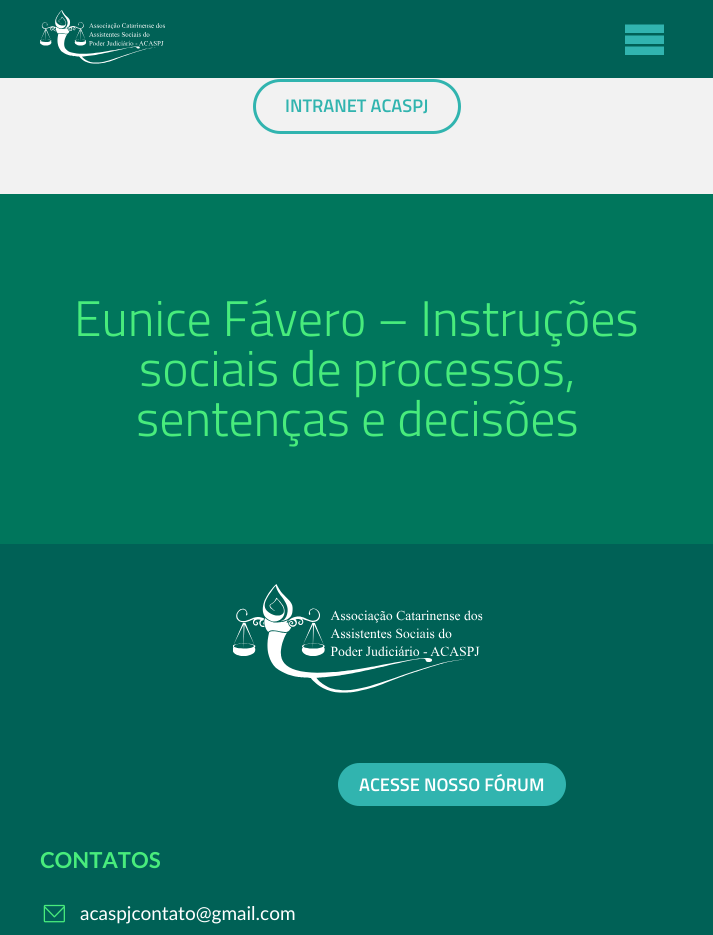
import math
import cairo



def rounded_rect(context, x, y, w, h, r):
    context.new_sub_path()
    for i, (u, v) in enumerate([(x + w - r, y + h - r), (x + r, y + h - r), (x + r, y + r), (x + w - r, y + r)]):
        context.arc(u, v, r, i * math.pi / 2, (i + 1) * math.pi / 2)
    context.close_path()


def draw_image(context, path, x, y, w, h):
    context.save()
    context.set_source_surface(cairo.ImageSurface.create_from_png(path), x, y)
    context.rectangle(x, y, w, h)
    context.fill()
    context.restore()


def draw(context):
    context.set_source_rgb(242 / 255, 242 / 255, 242 / 255)
    context.paint()
    context.set_source_rgb(0, 97 / 255, 86 / 255)
    context.rectangle(0, 0, 713, 78)
    context.fill()
    draw_image(context, "images/1.png", 40, 10, 125, 54)
    context.set_source_rgb(49 / 255, 180 / 255, 175 / 255)
    context.new_path()
    context.move_to(625, 24.5)
    context.line_to(664, 24.5)
    context.line_to(664, 33)
    context.line_to(625, 33)
    context.close_path()
    context.move_to(625, 35.5)
    context.line_to(664, 35.5)
    context.line_to(664, 44)
    context.line_to(625, 44)
    context.close_path()
    context.move_to(625, 46.5)
    context.line_to(664, 46.5)
    context.line_to(664, 55)
    context.line_to(625, 55)
    context.close_path()
    context.fill()
    rounded_rect(context, 254.5, 80.5, 205, 52, 26)
    context.set_line_width(3)
    context.stroke()
    context.set_source_rgb(0, 118 / 255, 92 / 255)
    context.rectangle(0, 194, 713, 350)
    context.fill()
    context.set_source_rgb(0, 97 / 255, 86 / 255)
    context.rectangle(0, 544, 713, 391)
    context.fill()
    draw_image(context, "images/2.png", 233, 584, 250, 109)
    context.set_source_rgb(49 / 255, 180 / 255, 175 / 255)
    rounded_rect(context, 339.5, 764.5, 225, 40, 20)
    context.fill_preserve()
    context.stroke()
    draw_image(context, "images/3.png", 43, 904, 22, 19)
    context.select_font_face("Titillium Web SemiBold")
    context.set_font_size(18.25)
    context.move_to(285, 112)
    context.show_text("INTRANET ACASPJ")
    context.select_font_face("Titillium Web Light")
    context.set_font_size(50)
    context.set_source_rgb(72 / 255, 236 / 255, 124 / 255)
    context.move_to(74, 336)
    context.show_text("Eunice Fávero – Instruções")
    context.move_to(139, 386)
    context.show_text("sociais de processos,")
    context.move_to(136, 436)
    context.show_text("sentenças e decisões")
    context.select_font_face("Titillium Web SemiBold")
    context.set_font_size(18.25)
    context.set_source_rgb(1, 1, 1)
    context.move_to(359, 791)
    context.show_text("ACESSE NOSSO FÓRUM")
    context.select_font_face("Lato", cairo.FontSlant.NORMAL, cairo.FontWeight.BOLD)
    context.set_font_size(22)
    context.set_source_rgb(72 / 255, 236 / 255, 124 / 255)
    context.move_to(40, 868)
    context.show_text("CONTATOS")
    context.select_font_face("Lato")
    context.set_font_size(19)
    context.set_source_rgb(1, 1, 1)
    context.move_to(80, 920)
    context.show_text("acaspjcontato@gmail.com")


surface = cairo.ImageSurface(cairo.Format.RGB24, 713, 935)
context = cairo.Context(surface)
options = cairo.FontOptions()
options.set_hint_metrics(cairo.HintMetrics.OFF)
options.set_hint_style(cairo.HintStyle.NONE)
context.set_font_options(options)
context.set_miter_limit(4)
draw(context)
surface.write_to_png("out.png")
